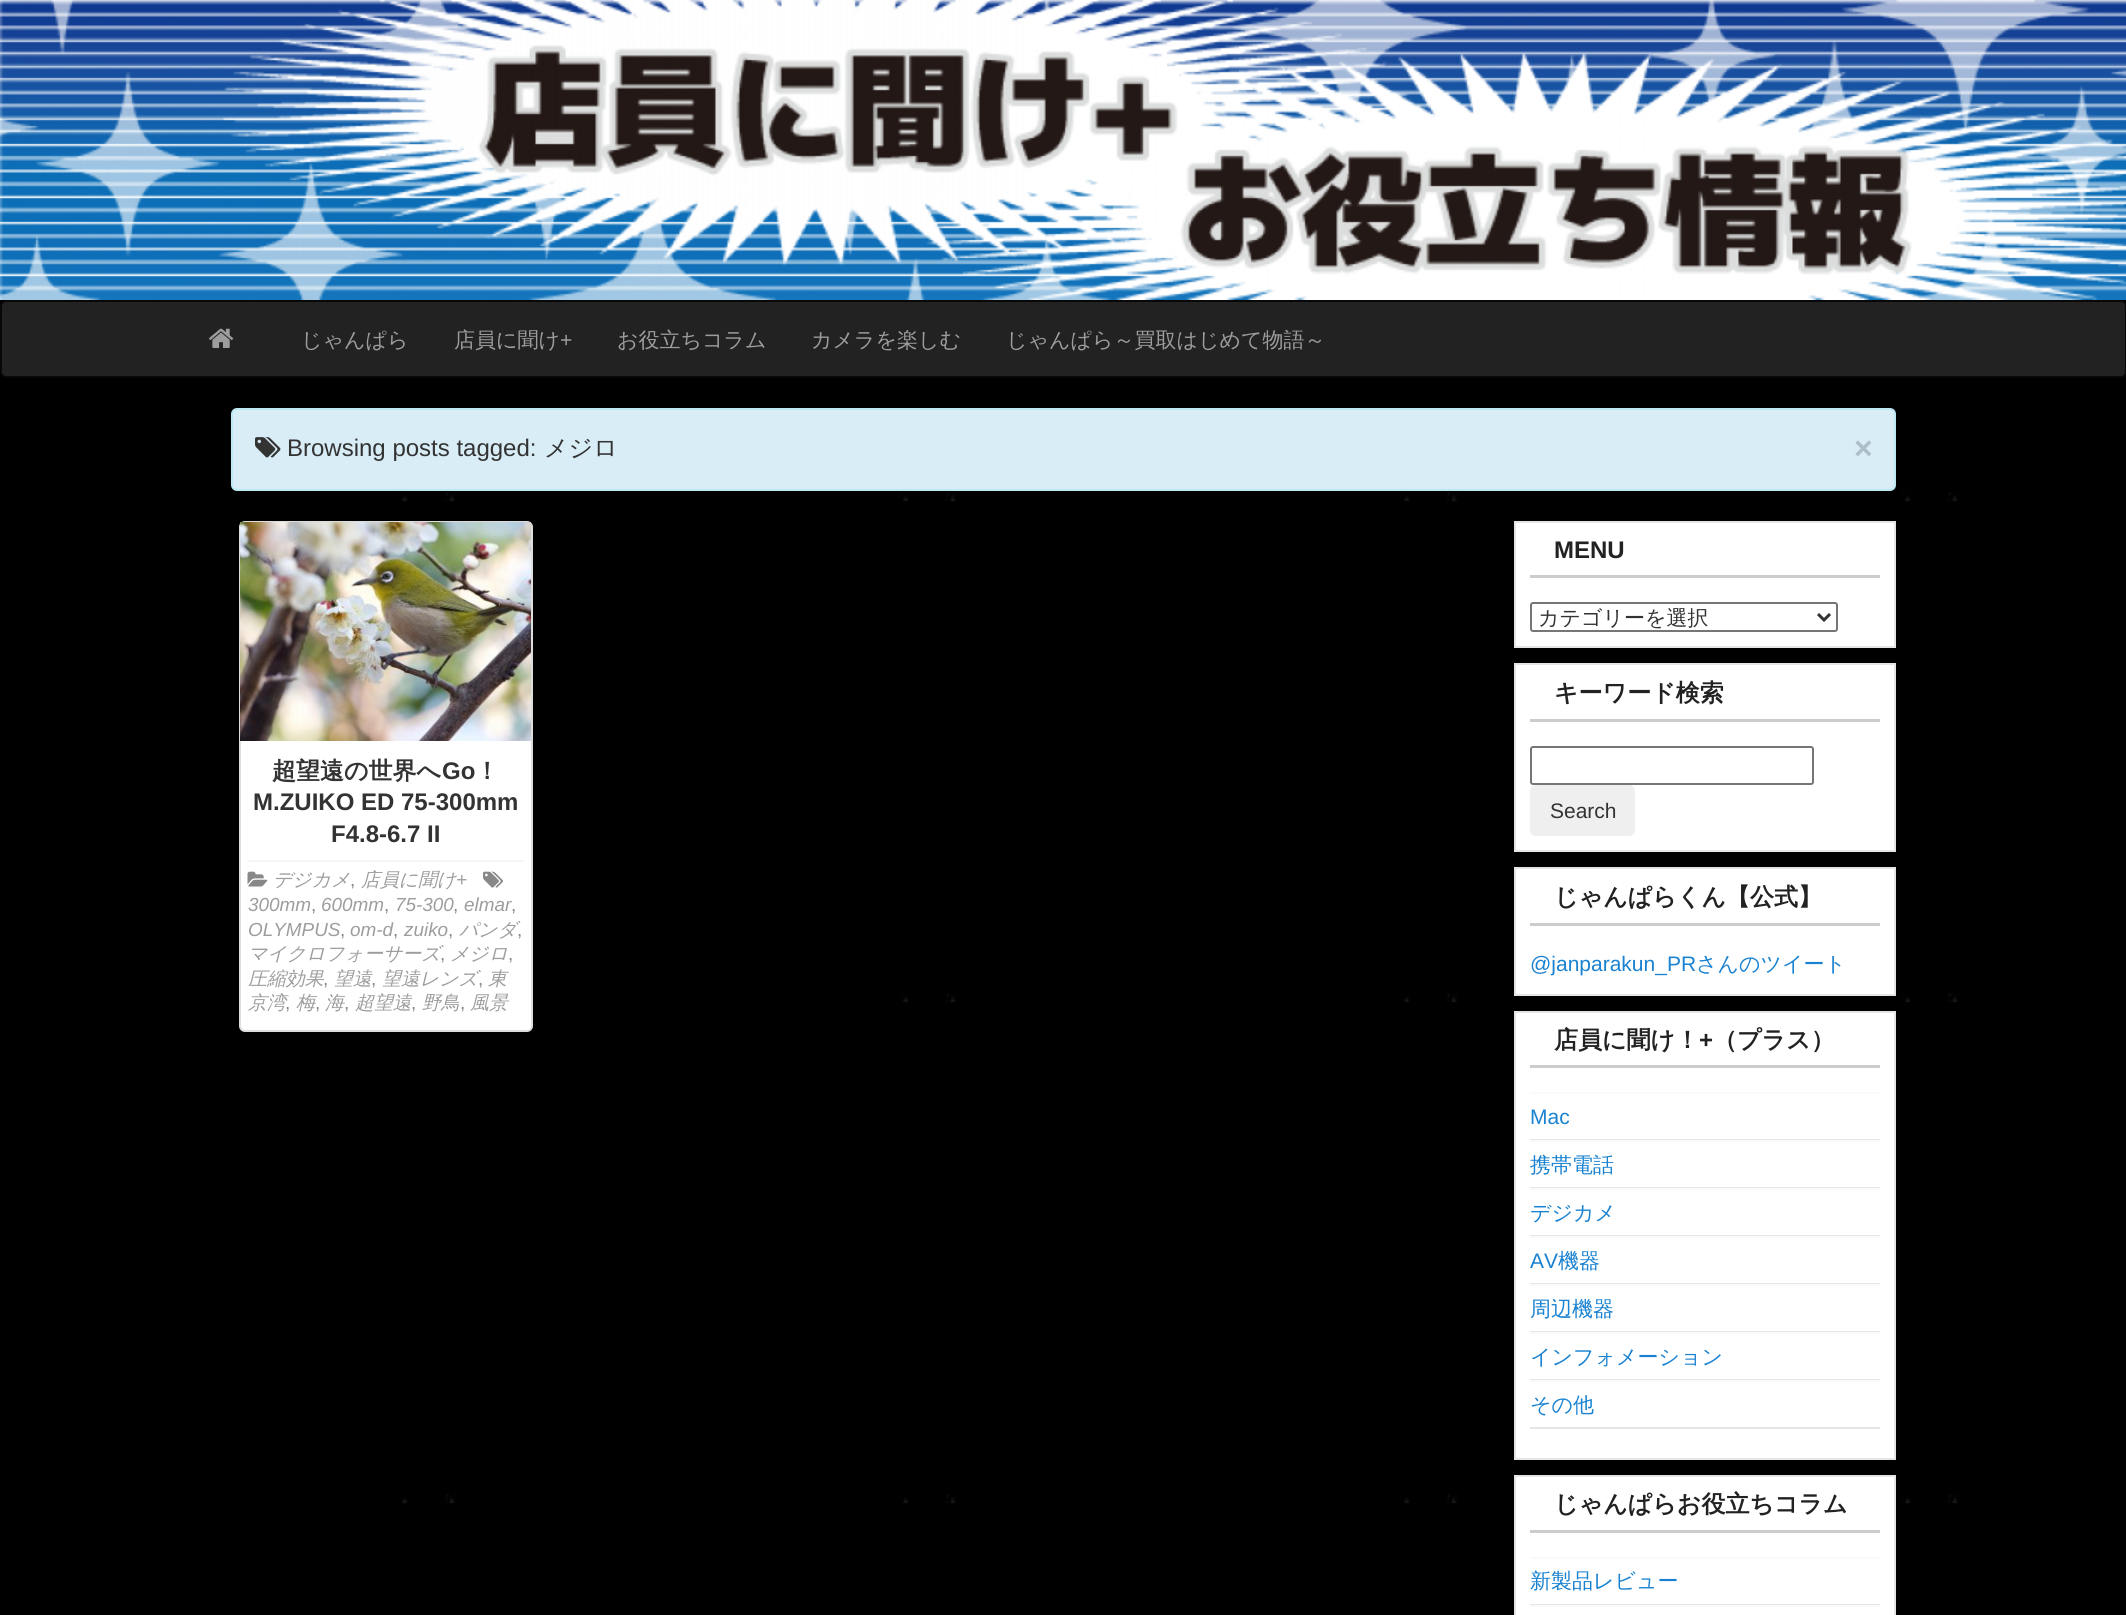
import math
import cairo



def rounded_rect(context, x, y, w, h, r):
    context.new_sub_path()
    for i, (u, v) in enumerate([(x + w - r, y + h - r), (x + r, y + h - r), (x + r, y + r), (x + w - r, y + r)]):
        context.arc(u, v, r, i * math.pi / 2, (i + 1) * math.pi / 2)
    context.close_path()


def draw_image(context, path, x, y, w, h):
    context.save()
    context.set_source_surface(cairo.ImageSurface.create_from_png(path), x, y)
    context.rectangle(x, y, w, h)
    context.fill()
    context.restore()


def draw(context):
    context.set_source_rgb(1, 1, 1)
    context.paint()
    draw_image(context, "images/1.png", 0, 300, 2126, 1315)
    draw_image(context, "images/2.png", 0, 0, 2126, 300)
    context.set_source_rgb(34 / 255, 34 / 255, 34 / 255)
    rounded_rect(context, 1, 301, 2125, 76, 5)
    context.fill_preserve()
    context.set_source_rgb(8 / 255, 8 / 255, 8 / 255)
    context.stroke()
    draw_image(context, "images/3.png", 209, 328, 25, 20)
    context.set_source_rgb(217 / 255, 237 / 255, 247 / 255)
    rounded_rect(context, 232, 409, 1663, 81, 5)
    context.fill_preserve()
    context.set_source_rgb(188 / 255, 232 / 255, 241 / 255)
    context.stroke()
    draw_image(context, "images/4.png", 255, 437, 26, 21)
    context.set_source_rgb(1, 1, 1)
    rounded_rect(context, 240, 522, 292, 509, 5)
    context.fill_preserve()
    context.set_source_rgb(221 / 255, 221 / 255, 221 / 255)
    context.stroke()
    draw_image(context, "images/5.png", 240, 522, 291, 219)
    context.set_source_rgb(245 / 255, 245 / 255, 245 / 255)
    context.rectangle(248, 860, 276, 2)
    context.fill()
    draw_image(context, "images/6.png", 247, 871, 21, 16)
    draw_image(context, "images/7.png", 483, 871, 20, 17)
    context.set_source_rgb(1, 1, 1)
    context.rectangle(1515, 522, 380, 125)
    context.fill_preserve()
    context.set_source_rgb(229 / 255, 229 / 255, 229 / 255)
    context.stroke()
    context.set_source_rgb(204 / 255, 204 / 255, 204 / 255)
    context.rectangle(1530, 575, 350, 3)
    context.fill()
    rounded_rect(context, 1531, 603, 306, 28, 2)
    context.set_source_rgb(118 / 255, 118 / 255, 118 / 255)
    context.stroke()
    context.new_path()
    context.move_to(1818, 614)
    context.line_to(1824, 620)
    context.line_to(1830, 614)
    context.set_source_rgb(51 / 255, 51 / 255, 51 / 255)
    context.set_line_width(3)
    context.stroke()
    context.set_source_rgb(1, 1, 1)
    context.rectangle(1515, 664, 380, 187)
    context.fill_preserve()
    context.set_source_rgb(229 / 255, 229 / 255, 229 / 255)
    context.set_line_width(2)
    context.stroke()
    context.set_source_rgb(204 / 255, 204 / 255, 204 / 255)
    context.rectangle(1530, 719, 350, 3)
    context.fill()
    rounded_rect(context, 1531, 747, 282, 37, 2)
    context.set_source_rgb(118 / 255, 118 / 255, 118 / 255)
    context.stroke()
    context.set_source_rgb(239 / 255, 239 / 255, 239 / 255)
    rounded_rect(context, 1530, 785, 105, 51, 6)
    context.fill()
    context.set_source_rgb(1, 1, 1)
    context.rectangle(1515, 868, 380, 127)
    context.fill_preserve()
    context.set_source_rgb(229 / 255, 229 / 255, 229 / 255)
    context.stroke()
    context.set_source_rgb(204 / 255, 204 / 255, 204 / 255)
    context.rectangle(1530, 923, 350, 3)
    context.fill()
    context.set_source_rgb(1, 1, 1)
    context.rectangle(1515, 1012, 380, 447)
    context.fill_preserve()
    context.set_source_rgb(229 / 255, 229 / 255, 229 / 255)
    context.stroke()
    context.set_source_rgb(204 / 255, 204 / 255, 204 / 255)
    context.rectangle(1530, 1065, 350, 3)
    context.fill()
    context.set_source_rgb(250 / 255, 250 / 255, 250 / 255)
    context.rectangle(1530, 1092, 350, 2)
    context.fill()
    context.set_source_rgb(229 / 255, 229 / 255, 229 / 255)
    context.rectangle(1530, 1139, 350, 1)
    context.fill()
    context.set_source_rgb(250 / 255, 250 / 255, 250 / 255)
    context.rectangle(1530, 1140, 350, 2)
    context.fill()
    context.set_source_rgb(229 / 255, 229 / 255, 229 / 255)
    context.rectangle(1530, 1187, 350, 1)
    context.fill()
    context.set_source_rgb(250 / 255, 250 / 255, 250 / 255)
    context.rectangle(1530, 1188, 350, 2)
    context.fill()
    context.set_source_rgb(229 / 255, 229 / 255, 229 / 255)
    context.rectangle(1530, 1235, 350, 1)
    context.fill()
    context.set_source_rgb(250 / 255, 250 / 255, 250 / 255)
    context.rectangle(1530, 1236, 350, 2)
    context.fill()
    context.set_source_rgb(229 / 255, 229 / 255, 229 / 255)
    context.rectangle(1530, 1283, 350, 1)
    context.fill()
    context.set_source_rgb(250 / 255, 250 / 255, 250 / 255)
    context.rectangle(1530, 1284, 350, 2)
    context.fill()
    context.set_source_rgb(229 / 255, 229 / 255, 229 / 255)
    context.rectangle(1530, 1331, 350, 1)
    context.fill()
    context.set_source_rgb(250 / 255, 250 / 255, 250 / 255)
    context.rectangle(1530, 1332, 350, 2)
    context.fill()
    context.set_source_rgb(229 / 255, 229 / 255, 229 / 255)
    context.rectangle(1530, 1379, 350, 1)
    context.fill()
    context.set_source_rgb(250 / 255, 250 / 255, 250 / 255)
    context.rectangle(1530, 1380, 350, 2)
    context.fill()
    context.set_source_rgb(229 / 255, 229 / 255, 229 / 255)
    context.rectangle(1530, 1427, 350, 2)
    context.fill()
    context.set_source_rgb(1, 1, 1)
    context.rectangle(1515, 1476, 380, 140)
    context.fill_preserve()
    context.set_source_rgb(229 / 255, 229 / 255, 229 / 255)
    context.stroke()
    context.set_source_rgb(204 / 255, 204 / 255, 204 / 255)
    context.rectangle(1530, 1530, 350, 3)
    context.fill()
    context.set_source_rgb(250 / 255, 250 / 255, 250 / 255)
    context.rectangle(1530, 1557, 350, 2)
    context.fill()
    context.set_source_rgb(229 / 255, 229 / 255, 229 / 255)
    context.rectangle(1530, 1604, 350, 1)
    context.fill()
    context.set_source_rgb(250 / 255, 250 / 255, 250 / 255)
    context.rectangle(1530, 1605, 350, 2)
    context.fill()
    context.select_font_face("WenQuanYi Zen Hei Medium")
    context.set_font_size(21)
    context.set_source_rgb(157 / 255, 157 / 255, 157 / 255)
    context.move_to(301, 347)
    context.show_text("じゃんぱら")
    context.move_to(454, 347)
    context.show_text("店員に聞け")
    context.select_font_face("Liberation Sans")
    context.move_to(560, 347)
    context.show_text("+")
    context.select_font_face("WenQuanYi Zen Hei Medium")
    context.move_to(617, 347)
    context.show_text("お役立ちコラム")
    context.move_to(811, 347)
    context.show_text("カメラを楽しむ")
    context.move_to(1006, 347)
    context.show_text("じゃんぱら～買取はじめて物語～")
    context.select_font_face("Liberation Sans")
    context.set_font_size(24)
    context.set_source_rgb(51 / 255, 51 / 255, 51 / 255)
    context.move_to(287, 456)
    context.show_text("Browsing posts tagged:")
    context.select_font_face("WenQuanYi Zen Hei Medium")
    context.move_to(544, 456)
    context.show_text("メジロ")
    context.select_font_face("Liberation Sans", cairo.FontSlant.NORMAL, cairo.FontWeight.BOLD)
    context.set_font_size(32)
    context.set_source_rgb(174 / 255, 190 / 255, 198 / 255)
    context.move_to(1854, 459)
    context.show_text("×")
    context.select_font_face("WenQuanYi Zen Hei", cairo.FontSlant.NORMAL, cairo.FontWeight.BOLD)
    context.set_font_size(24)
    context.set_source_rgb(51 / 255, 51 / 255, 51 / 255)
    context.move_to(272, 779)
    context.show_text("超望遠の世界へ")
    context.select_font_face("Liberation Sans", cairo.FontSlant.NORMAL, cairo.FontWeight.BOLD)
    context.move_to(442, 779)
    context.show_text("Go")
    context.select_font_face("WenQuanYi Zen Hei", cairo.FontSlant.NORMAL, cairo.FontWeight.BOLD)
    context.move_to(475, 779)
    context.show_text("！")
    context.select_font_face("Liberation Sans", cairo.FontSlant.NORMAL, cairo.FontWeight.BOLD)
    context.move_to(253, 810)
    context.show_text("M.ZUIKO ED 75-300mm")
    context.move_to(331, 842)
    context.show_text("F4.8-6.7 II")
    context.select_font_face("WenQuanYi Zen Hei Medium", cairo.FontSlant.ITALIC)
    context.set_font_size(18.9)
    context.set_source_rgb(157 / 255, 157 / 255, 157 / 255)
    context.move_to(273, 886)
    context.show_text("デジカメ")
    context.move_to(361, 886)
    context.show_text("店員に聞け")
    context.select_font_face("Liberation Sans", cairo.FontSlant.ITALIC)
    context.move_to(456, 886)
    context.show_text("+")
    context.select_font_face("Liberation Sans")
    context.set_source_rgb(136 / 255, 136 / 255, 136 / 255)
    context.move_to(350, 886)
    context.show_text(",")
    context.select_font_face("Liberation Sans", cairo.FontSlant.ITALIC)
    context.set_source_rgb(157 / 255, 157 / 255, 157 / 255)
    context.move_to(248, 911)
    context.show_text("300mm")
    context.select_font_face("Liberation Sans")
    context.set_source_rgb(136 / 255, 136 / 255, 136 / 255)
    context.move_to(311, 911)
    context.show_text(",")
    context.select_font_face("Liberation Sans", cairo.FontSlant.ITALIC)
    context.set_source_rgb(157 / 255, 157 / 255, 157 / 255)
    context.move_to(321, 911)
    context.show_text("600mm")
    context.select_font_face("Liberation Sans")
    context.set_source_rgb(136 / 255, 136 / 255, 136 / 255)
    context.move_to(384, 911)
    context.show_text(",")
    context.select_font_face("Liberation Sans", cairo.FontSlant.ITALIC)
    context.set_source_rgb(157 / 255, 157 / 255, 157 / 255)
    context.move_to(395, 911)
    context.show_text("75-300")
    context.select_font_face("Liberation Sans")
    context.set_source_rgb(136 / 255, 136 / 255, 136 / 255)
    context.move_to(453, 911)
    context.show_text(",")
    context.select_font_face("Liberation Sans", cairo.FontSlant.ITALIC)
    context.set_source_rgb(157 / 255, 157 / 255, 157 / 255)
    context.move_to(464, 911)
    context.show_text("elmar")
    context.select_font_face("Liberation Sans")
    context.set_source_rgb(136 / 255, 136 / 255, 136 / 255)
    context.move_to(511, 911)
    context.show_text(",")
    context.select_font_face("Liberation Sans", cairo.FontSlant.ITALIC)
    context.set_source_rgb(157 / 255, 157 / 255, 157 / 255)
    context.move_to(248, 936)
    context.show_text("OLYMPUS")
    context.select_font_face("Liberation Sans")
    context.set_source_rgb(136 / 255, 136 / 255, 136 / 255)
    context.move_to(340, 936)
    context.show_text(",")
    context.select_font_face("Liberation Sans", cairo.FontSlant.ITALIC)
    context.set_source_rgb(157 / 255, 157 / 255, 157 / 255)
    context.move_to(350, 936)
    context.show_text("om-d")
    context.select_font_face("Liberation Sans")
    context.set_source_rgb(136 / 255, 136 / 255, 136 / 255)
    context.move_to(393, 936)
    context.show_text(",")
    context.select_font_face("Liberation Sans", cairo.FontSlant.ITALIC)
    context.set_source_rgb(157 / 255, 157 / 255, 157 / 255)
    context.move_to(404, 936)
    context.show_text("zuiko")
    context.select_font_face("Liberation Sans")
    context.set_source_rgb(136 / 255, 136 / 255, 136 / 255)
    context.move_to(448, 936)
    context.show_text(",")
    context.select_font_face("WenQuanYi Zen Hei Medium", cairo.FontSlant.ITALIC)
    context.set_source_rgb(157 / 255, 157 / 255, 157 / 255)
    context.move_to(459, 936)
    context.show_text("パンダ")
    context.select_font_face("Liberation Sans")
    context.set_source_rgb(136 / 255, 136 / 255, 136 / 255)
    context.move_to(517, 936)
    context.show_text(",")
    context.select_font_face("WenQuanYi Zen Hei Medium", cairo.FontSlant.ITALIC)
    context.set_source_rgb(157 / 255, 157 / 255, 157 / 255)
    context.move_to(248, 960)
    context.show_text("マイクロフォーサーズ")
    context.move_to(450, 960)
    context.show_text("メジロ")
    context.select_font_face("Liberation Sans")
    context.set_source_rgb(136 / 255, 136 / 255, 136 / 255)
    context.move_to(440, 960)
    context.show_text(",")
    context.move_to(508, 960)
    context.show_text(",")
    context.select_font_face("WenQuanYi Zen Hei Medium", cairo.FontSlant.ITALIC)
    context.set_source_rgb(157 / 255, 157 / 255, 157 / 255)
    context.move_to(248, 985)
    context.show_text("圧縮効果")
    context.select_font_face("Liberation Sans")
    context.set_source_rgb(136 / 255, 136 / 255, 136 / 255)
    context.move_to(323, 985)
    context.show_text(",")
    context.select_font_face("WenQuanYi Zen Hei Medium", cairo.FontSlant.ITALIC)
    context.set_source_rgb(157 / 255, 157 / 255, 157 / 255)
    context.move_to(334, 985)
    context.show_text("望遠")
    context.select_font_face("Liberation Sans")
    context.set_source_rgb(136 / 255, 136 / 255, 136 / 255)
    context.move_to(371, 985)
    context.show_text(",")
    context.select_font_face("WenQuanYi Zen Hei Medium", cairo.FontSlant.ITALIC)
    context.set_source_rgb(157 / 255, 157 / 255, 157 / 255)
    context.move_to(382, 985)
    context.show_text("望遠レンズ")
    context.move_to(488, 985)
    context.show_text("東")
    context.select_font_face("Liberation Sans")
    context.set_source_rgb(136 / 255, 136 / 255, 136 / 255)
    context.move_to(478, 985)
    context.show_text(",")
    context.select_font_face("WenQuanYi Zen Hei Medium", cairo.FontSlant.ITALIC)
    context.set_source_rgb(157 / 255, 157 / 255, 157 / 255)
    context.move_to(248, 1009)
    context.show_text("京湾")
    context.move_to(296, 1009)
    context.show_text("梅")
    context.move_to(325, 1009)
    context.show_text("海")
    context.move_to(355, 1009)
    context.show_text("超望遠")
    context.move_to(422, 1009)
    context.show_text("野鳥")
    context.move_to(470, 1009)
    context.show_text("風景")
    context.select_font_face("Liberation Sans")
    context.set_source_rgb(136 / 255, 136 / 255, 136 / 255)
    context.move_to(285, 1009)
    context.show_text(",")
    context.move_to(315, 1009)
    context.show_text(",")
    context.move_to(344, 1009)
    context.show_text(",")
    context.move_to(411, 1009)
    context.show_text(",")
    context.move_to(460, 1009)
    context.show_text(",")
    context.select_font_face("Liberation Sans", cairo.FontSlant.NORMAL, cairo.FontWeight.BOLD)
    context.set_font_size(24)
    context.set_source_rgb(34 / 255, 34 / 255, 34 / 255)
    context.move_to(1554, 558)
    context.show_text("MENU")
    context.select_font_face("WenQuanYi Zen Hei Medium")
    context.set_font_size(21)
    context.set_source_rgb(51 / 255, 51 / 255, 51 / 255)
    context.move_to(1538, 625)
    context.show_text("カテゴリーを選択")
    context.select_font_face("WenQuanYi Zen Hei", cairo.FontSlant.NORMAL, cairo.FontWeight.BOLD)
    context.set_font_size(24)
    context.set_source_rgb(34 / 255, 34 / 255, 34 / 255)
    context.move_to(1554, 701)
    context.show_text("キーワード検索")
    context.select_font_face("Liberation Sans")
    context.set_font_size(21)
    context.set_source_rgb(51 / 255, 51 / 255, 51 / 255)
    context.move_to(1550, 818)
    context.show_text("Search")
    context.select_font_face("WenQuanYi Zen Hei", cairo.FontSlant.NORMAL, cairo.FontWeight.BOLD)
    context.set_font_size(24)
    context.set_source_rgb(34 / 255, 34 / 255, 34 / 255)
    context.move_to(1554, 905)
    context.show_text("じゃんぱらくん【公式】")
    context.select_font_face("Liberation Sans")
    context.set_font_size(21)
    context.set_source_rgb(25 / 255, 130 / 255, 209 / 255)
    context.move_to(1530, 971)
    context.show_text("@janparakun_PR")
    context.select_font_face("WenQuanYi Zen Hei Medium")
    context.move_to(1696, 971)
    context.show_text("さんのツイート")
    context.select_font_face("WenQuanYi Zen Hei", cairo.FontSlant.NORMAL, cairo.FontWeight.BOLD)
    context.set_font_size(24)
    context.set_source_rgb(34 / 255, 34 / 255, 34 / 255)
    context.move_to(1554, 1048)
    context.show_text("店員に聞け！")
    context.select_font_face("Liberation Sans", cairo.FontSlant.NORMAL, cairo.FontWeight.BOLD)
    context.move_to(1699, 1048)
    context.show_text("+")
    context.select_font_face("WenQuanYi Zen Hei", cairo.FontSlant.NORMAL, cairo.FontWeight.BOLD)
    context.move_to(1713, 1048)
    context.show_text("（プラス）")
    context.select_font_face("Liberation Sans")
    context.set_font_size(21)
    context.set_source_rgb(25 / 255, 130 / 255, 209 / 255)
    context.move_to(1530, 1124)
    context.show_text("Mac")
    context.select_font_face("WenQuanYi Zen Hei Medium")
    context.move_to(1530, 1172)
    context.show_text("携帯電話")
    context.move_to(1530, 1220)
    context.show_text("デジカメ")
    context.select_font_face("Liberation Sans")
    context.move_to(1530, 1268)
    context.show_text("AV")
    context.select_font_face("WenQuanYi Zen Hei Medium")
    context.move_to(1558, 1268)
    context.show_text("機器")
    context.move_to(1530, 1316)
    context.show_text("周辺機器")
    context.move_to(1530, 1364)
    context.show_text("インフォメーション")
    context.move_to(1530, 1412)
    context.show_text("その他")
    context.select_font_face("WenQuanYi Zen Hei", cairo.FontSlant.NORMAL, cairo.FontWeight.BOLD)
    context.set_font_size(24)
    context.set_source_rgb(34 / 255, 34 / 255, 34 / 255)
    context.move_to(1554, 1512)
    context.show_text("じゃんぱらお役立ちコラム")
    context.select_font_face("WenQuanYi Zen Hei Medium")
    context.set_font_size(21)
    context.set_source_rgb(25 / 255, 130 / 255, 209 / 255)
    context.move_to(1530, 1588)
    context.show_text("新製品レビュー")


surface = cairo.ImageSurface(cairo.Format.RGB24, 2126, 1615)
context = cairo.Context(surface)
options = cairo.FontOptions()
options.set_hint_metrics(cairo.HintMetrics.OFF)
options.set_hint_style(cairo.HintStyle.NONE)
context.set_font_options(options)
context.set_miter_limit(4)
draw(context)
surface.write_to_png("out.png")
